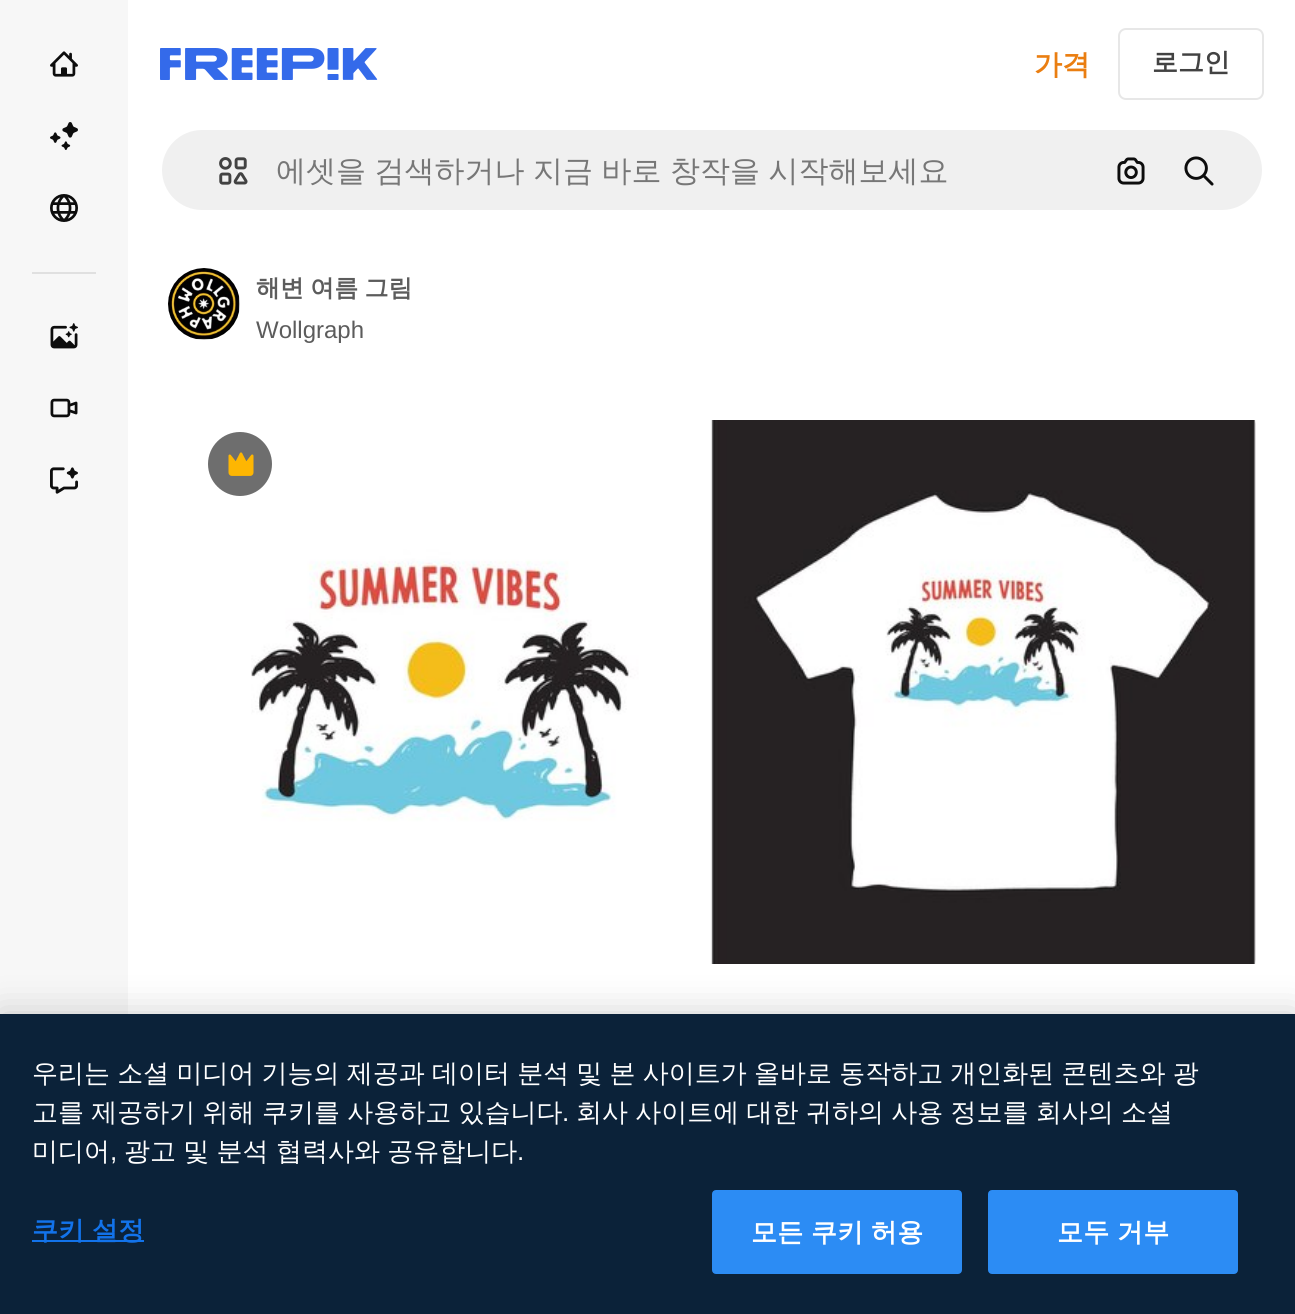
import math
import cairo



def draw_spaced(context, x, y, s, letter, word):
    context.move_to(x, y)
    for ch in s:
        context.show_text(ch)
        context.rel_move_to(letter + word * (ch == ' '), 0)


def rounded_rect(context, x, y, w, h, r):
    context.new_sub_path()
    for i, (u, v) in enumerate([(x + w - r, y + h - r), (x + r, y + h - r), (x + r, y + r), (x + w - r, y + r)]):
        context.arc(u, v, r, i * math.pi / 2, (i + 1) * math.pi / 2)
    context.close_path()


def draw_shadow(context, x, y, w, h, r, blur, alpha):
    context.push_group_with_content(cairo.Content.ALPHA)
    context.set_operator(cairo.Operator.SOURCE)
    for i in range(15, -16, -2):
        e = blur * i / 6
        if min(w, h) + 2 * e > 0:
            context.set_source_rgba(0, 0, 0, alpha * math.erfc((i - 1) / 8.5) / 2)
            rounded_rect(context, x - e, y - e, w + 2 * e, h + 2 * e, max(0, min(r + e + blur * .6, min(w, h) / 2 + e)))
            context.fill()
    context.mask(context.pop_group())


def draw_image(context, path, x, y, w, h):
    context.save()
    context.set_source_surface(cairo.ImageSurface.create_from_png(path), x, y)
    context.rectangle(x, y, w, h)
    context.fill()
    context.restore()


def draw(context):
    context.set_source_rgb(1, 1, 1)
    context.paint()
    context.set_source_rgb(247 / 255, 247 / 255, 247 / 255)
    context.rectangle(0, 0, 128, 1014)
    context.fill()
    draw_image(context, "images/1.png", 50, 51, 28, 26)
    draw_image(context, "images/2.png", 50, 122, 28, 28)
    draw_image(context, "images/3.png", 50, 194, 28, 28)
    context.set_source_rgb(224 / 255, 224 / 255, 224 / 255)
    context.rectangle(32, 272, 64, 2)
    context.fill()
    draw_image(context, "images/4.png", 50, 323, 28, 26)
    draw_image(context, "images/5.png", 50, 398, 28, 20)
    draw_image(context, "images/6.png", 50, 467, 28, 27)
    draw_image(context, "images/7.png", 160, 48, 218, 32)
    rounded_rect(context, 1119, 29, 144, 70, 7)
    context.set_source_rgb(231 / 255, 231 / 255, 231 / 255)
    context.stroke()
    context.set_source_rgb(240 / 255, 240 / 255, 240 / 255)
    rounded_rect(context, 161, 129, 1102, 82, 41)
    context.fill_preserve()
    context.set_source_rgb(1, 1, 1)
    context.stroke()
    draw_image(context, "images/8.png", 219, 157, 29, 28)
    draw_image(context, "images/9.png", 1117, 157, 28, 28)
    draw_image(context, "images/10.png", 1184, 156, 30, 30)
    draw_image(context, "images/11.png", 168, 268, 72, 72)
    draw_image(context, "images/13.png", 251, 420, 1005, 544)
    context.set_source_rgb(110 / 255, 110 / 255, 110 / 255)
    context.arc(240, 464, 32, 0, 2 * math.pi)
    context.fill()
    draw_image(context, "images/12.png", 228, 452, 26, 24)
    context.set_source_rgb(0, 0, 0)
    draw_shadow(context, 0, 1014, 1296, 300, 0, 18, 0.2)
    context.set_source_rgb(11 / 255, 34 / 255, 57 / 255)
    context.rectangle(0, 1014, 1295, 300)
    context.fill()
    context.set_source_rgb(18 / 255, 115 / 255, 235 / 255)
    context.rectangle(32, 1240, 112, 2)
    context.fill()
    context.set_source_rgb(44 / 255, 140 / 255, 244 / 255)
    rounded_rect(context, 713, 1191, 248, 82, 3)
    context.fill_preserve()
    context.stroke()
    rounded_rect(context, 989, 1191, 248, 82, 3)
    context.fill_preserve()
    context.stroke()
    context.select_font_face("WenQuanYi Zen Hei", cairo.FontSlant.NORMAL, cairo.FontWeight.BOLD)
    context.set_font_size(28)
    context.set_source_rgb(234 / 255, 126 / 255, 17 / 255)
    context.move_to(1034, 74)
    context.show_text("가격")
    context.set_font_size(26)
    context.set_source_rgb(66 / 255, 66 / 255, 66 / 255)
    context.move_to(1152, 71)
    context.show_text("로그인")
    context.select_font_face("WenQuanYi Zen Hei Medium")
    context.set_font_size(30)
    context.set_source_rgb(119 / 255, 119 / 255, 119 / 255)
    draw_spaced(context, 276, 181, "에셋을 검색하거나 지금 바로 창작을 시작해보세요", 0, -0.5)
    context.select_font_face("WenQuanYi Zen Hei", cairo.FontSlant.NORMAL, cairo.FontWeight.BOLD)
    context.set_font_size(24)
    context.set_source_rgb(92 / 255, 92 / 255, 92 / 255)
    draw_spaced(context, 256, 296, "해변 여름 그림", 0, -1)
    context.select_font_face("Liberation Sans")
    context.move_to(256, 338)
    context.show_text("Wollgraph")
    context.select_font_face("WenQuanYi Zen Hei Medium")
    context.set_font_size(26)
    context.set_source_rgb(1, 1, 1)
    draw_spaced(context, 32, 1082, "우리는 소셜 미디어 기능의 제공과 데이터 분석 및 본 사이트가 올바로 동작하고 개인화된 콘텐츠와 광", 0, -0.6)
    draw_spaced(context, 32, 1121, "고를 제공하기 위해 쿠키를 사용하고 있습니다", 0, -0.5)
    context.select_font_face("Liberation Sans")
    context.move_to(562, 1121)
    context.show_text(".")
    context.select_font_face("WenQuanYi Zen Hei Medium")
    draw_spaced(context, 576, 1121, "회사 사이트에 대한 귀하의 사용 정보를 회사의 소셜", 0, -0.5)
    context.move_to(32, 1160)
    context.show_text("미디어")
    context.select_font_face("Liberation Sans")
    context.move_to(110, 1160)
    context.show_text(",")
    context.select_font_face("WenQuanYi Zen Hei Medium")
    draw_spaced(context, 124, 1160, "광고 및 분석 협력사와 공유합니다", 0, -0.5)
    context.select_font_face("Liberation Sans")
    context.move_to(517, 1160)
    context.show_text(".")
    context.select_font_face("WenQuanYi Zen Hei", cairo.FontSlant.NORMAL, cairo.FontWeight.BOLD)
    context.set_source_rgb(18 / 255, 115 / 255, 235 / 255)
    draw_spaced(context, 32, 1239, "쿠키 설정", 0.25, -0.5)
    context.set_source_rgb(1, 1, 1)
    draw_spaced(context, 751, 1241, "모든 쿠키 허용", 0.25, -0.5)
    draw_spaced(context, 1057, 1241, "모두 거부", 0.25, -0.5)


surface = cairo.ImageSurface(cairo.Format.RGB24, 1295, 1314)
context = cairo.Context(surface)
options = cairo.FontOptions()
options.set_hint_metrics(cairo.HintMetrics.OFF)
options.set_hint_style(cairo.HintStyle.NONE)
context.set_font_options(options)
context.set_miter_limit(4)
draw(context)
surface.write_to_png("out.png")
